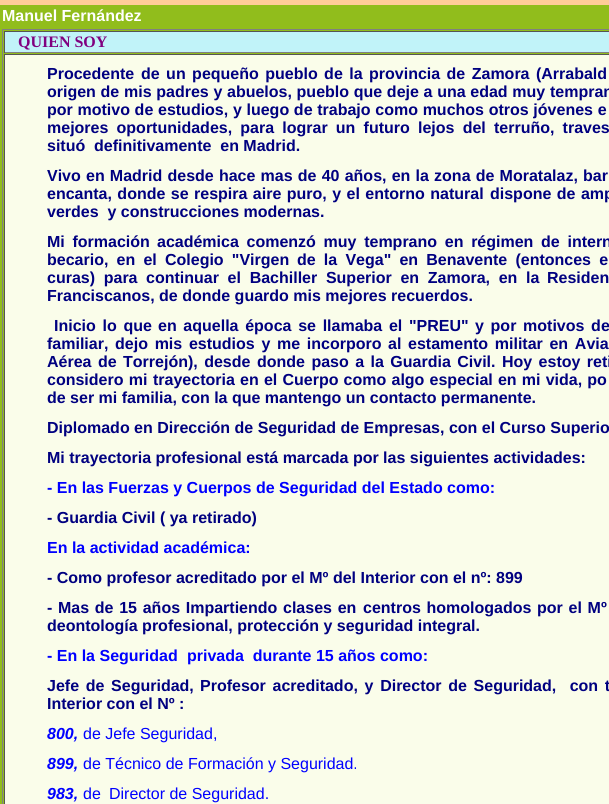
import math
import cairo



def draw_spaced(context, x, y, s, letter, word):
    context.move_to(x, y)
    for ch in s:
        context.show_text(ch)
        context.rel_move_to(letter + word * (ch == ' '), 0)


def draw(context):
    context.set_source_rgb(1, 204 / 255, 153 / 255)
    context.paint()
    context.set_source_rgb(145 / 255, 189 / 255, 28 / 255)
    context.rectangle(0, 5, 609, 799)
    context.fill()
    context.set_source_rgb(128 / 255, 128 / 255, 128 / 255)
    context.rectangle(2, 29, 607, 1)
    context.fill()
    context.rectangle(2, 29, 1, 775)
    context.fill()
    context.set_source_rgb(193 / 255, 243 / 255, 249 / 255)
    context.rectangle(5, 32, 604, 20)
    context.fill()
    context.set_source_rgb(85 / 255, 85 / 255, 85 / 255)
    context.rectangle(4, 31, 605, 1)
    context.fill()
    context.set_source_rgb(128 / 255, 128 / 255, 128 / 255)
    context.rectangle(4, 52, 605, 1)
    context.fill()
    context.set_source_rgb(85 / 255, 85 / 255, 85 / 255)
    context.rectangle(4, 31, 1, 22)
    context.fill()
    context.set_source_rgb(250 / 255, 253 / 255, 234 / 255)
    context.rectangle(5, 55, 604, 749)
    context.fill()
    context.set_source_rgb(85 / 255, 85 / 255, 85 / 255)
    context.rectangle(4, 54, 605, 1)
    context.fill()
    context.rectangle(4, 54, 1, 750)
    context.fill()
    context.select_font_face("Liberation Sans", cairo.FontSlant.NORMAL, cairo.FontWeight.BOLD)
    context.set_font_size(16)
    context.set_source_rgb(1, 1, 1)
    context.move_to(2, 21)
    context.show_text("Manuel Fernández")
    context.select_font_face("Liberation Serif", cairo.FontSlant.NORMAL, cairo.FontWeight.BOLD)
    context.set_source_rgb(128 / 255, 0, 128 / 255)
    context.move_to(18, 47)
    context.show_text("QUIEN SOY")
    context.select_font_face("Liberation Sans", cairo.FontSlant.NORMAL, cairo.FontWeight.BOLD)
    context.set_source_rgb(0, 0, 128 / 255)
    context.move_to(47, 79)
    context.show_text("Procedente")
    draw_spaced(context, 141, 79, "de un pequeño pueblo de la provincia de Zamora (Arrabald", 0, 2)
    draw_spaced(context, 47, 97, "origen de mis padres y abuelos, pueblo que deje a una edad muy tempran", 0, 0.25)
    draw_spaced(context, 47, 115, "por motivo de estudios, y luego de trabajo como muchos otros jóvenes e", 0, 0.25)
    draw_spaced(context, 47, 133, "mejores oportunidades, para lograr un futuro", 0, 3.75)
    draw_spaced(context, 418, 133, "lejos del terruño, traves", 0, 3.75)
    context.move_to(47, 151)
    context.show_text("situó")
    context.move_to(94, 151)
    context.show_text("definitivamente  en Madrid.")
    context.move_to(47, 181)
    context.show_text("Vivo")
    draw_spaced(context, 86, 181, "en Madrid desde hace mas de 40 años, en la zona de Moratalaz, bar", 0, 0.75)
    draw_spaced(context, 47, 199, "encanta, donde se respira aire puro, y el entorno natural", 0, 1)
    draw_spaced(context, 490, 199, "dispone de amp", 0, 1)
    context.move_to(47, 217)
    context.show_text("verdes  y construcciones modernas.")
    draw_spaced(context, 47, 247, "Mi formación", 0, 3.25)
    draw_spaced(context, 157, 247, "académica comenzó muy temprano en régimen de intern", 0, 3.25)
    draw_spaced(context, 47, 265, "becario, en el Colegio \"Virgen", 0, 3.75)
    draw_spaced(context, 297, 265, "de la Vega\" en Benavente (entonces e", 0, 3.75)
    draw_spaced(context, 47, 283, "curas) para", 0, 4.25)
    draw_spaced(context, 146, 283, "continuar el Bachiller Superior en Zamora, en la", 0, 4.25)
    draw_spaced(context, 547, 283, "Residen", 0, 4.25)
    context.move_to(47, 301)
    context.show_text("Franciscanos, de donde guardo mis mejores recuerdos.")
    draw_spaced(context, 54, 331, "Inicio lo que", 0, 2.25)
    draw_spaced(context, 158, 331, "en aquella época se llamaba el \"PREU\"", 0, 2.25)
    draw_spaced(context, 475, 331, "y por motivos de", 0, 2.25)
    draw_spaced(context, 47, 349, "familiar, dejo mis estudios y me incorporo", 0, 2.25)
    draw_spaced(context, 388, 349, "al estamento militar en Avia", 0, 2.25)
    draw_spaced(context, 47, 367, "Aérea de Torrejón), desde", 0, 2)
    draw_spaced(context, 257, 367, "donde paso a la Guardia Civil. Hoy estoy reti", 0, 2)
    draw_spaced(context, 47, 385, "considero mi", 0, 0.75)
    draw_spaced(context, 153, 385, "trayectoria en el Cuerpo como algo especial en mi vida, po", 0, 0.75)
    context.move_to(47, 403)
    context.show_text("de ser mi familia, con la que mantengo un contacto permanente.")
    context.move_to(47, 433)
    context.show_text("Diplomado en Dirección de Seguridad de Empresas, con el Curso Superio")
    context.move_to(47, 463)
    context.show_text("Mi trayectoria profesional está marcada por las siguientes actividades:")
    context.set_source_rgb(0, 0, 1)
    context.move_to(47, 493)
    context.show_text("- En las Fuerzas y Cuerpos de Seguridad del Estado como:")
    context.set_source_rgb(0, 0, 128 / 255)
    context.move_to(47, 523)
    context.show_text("- Guardia Civil ( ya retirado)")
    context.set_source_rgb(0, 0, 1)
    context.move_to(47, 553)
    context.show_text("En la actividad académica:")
    context.set_source_rgb(0, 0, 128 / 255)
    context.move_to(47, 583)
    context.show_text("- Como profesor acreditado por el Mº del Interior con el nº: 899")
    draw_spaced(context, 47, 613, "- Mas de 15 años Impartiendo clases en", 0, 1.25)
    draw_spaced(context, 363, 613, "centros homologados por el Mº", 0, 1.25)
    context.move_to(47, 631)
    context.show_text("deontología profesional, protección y seguridad integral.")
    context.set_source_rgb(0, 0, 1)
    context.move_to(47, 661)
    context.show_text("- En la Seguridad")
    context.move_to(187, 661)
    context.show_text("privada  durante 15 años como:")
    context.set_source_rgb(0, 0, 128 / 255)
    draw_spaced(context, 47, 691, "Jefe de Seguridad,", 0, 2.25)
    draw_spaced(context, 200, 691, "Profesor acreditado, y Director de Seguridad,  con t", 0, 2.25)
    context.move_to(47, 709)
    context.show_text("Interior con el Nº :")
    context.select_font_face("Liberation Sans", cairo.FontSlant.ITALIC, cairo.FontWeight.BOLD)
    context.set_source_rgb(0, 0, 1)
    context.move_to(47, 739)
    context.show_text("800,")
    context.select_font_face("Liberation Sans")
    context.move_to(83, 739)
    context.show_text("de Jefe Seguridad,")
    context.select_font_face("Liberation Sans", cairo.FontSlant.ITALIC, cairo.FontWeight.BOLD)
    context.move_to(47, 769)
    context.show_text("899,")
    context.select_font_face("Liberation Sans")
    context.move_to(83, 769)
    context.show_text("de Técnico de Formación y Seguridad.")
    context.select_font_face("Liberation Sans", cairo.FontSlant.ITALIC, cairo.FontWeight.BOLD)
    context.move_to(47, 799)
    context.show_text("983,")
    context.select_font_face("Liberation Sans")
    context.move_to(83, 799)
    context.show_text("de")
    context.move_to(109, 799)
    context.show_text("Director de Seguridad.")


surface = cairo.ImageSurface(cairo.Format.RGB24, 609, 804)
context = cairo.Context(surface)
options = cairo.FontOptions()
options.set_hint_metrics(cairo.HintMetrics.OFF)
options.set_hint_style(cairo.HintStyle.NONE)
context.set_font_options(options)
context.set_miter_limit(4)
draw(context)
surface.write_to_png("out.png")
